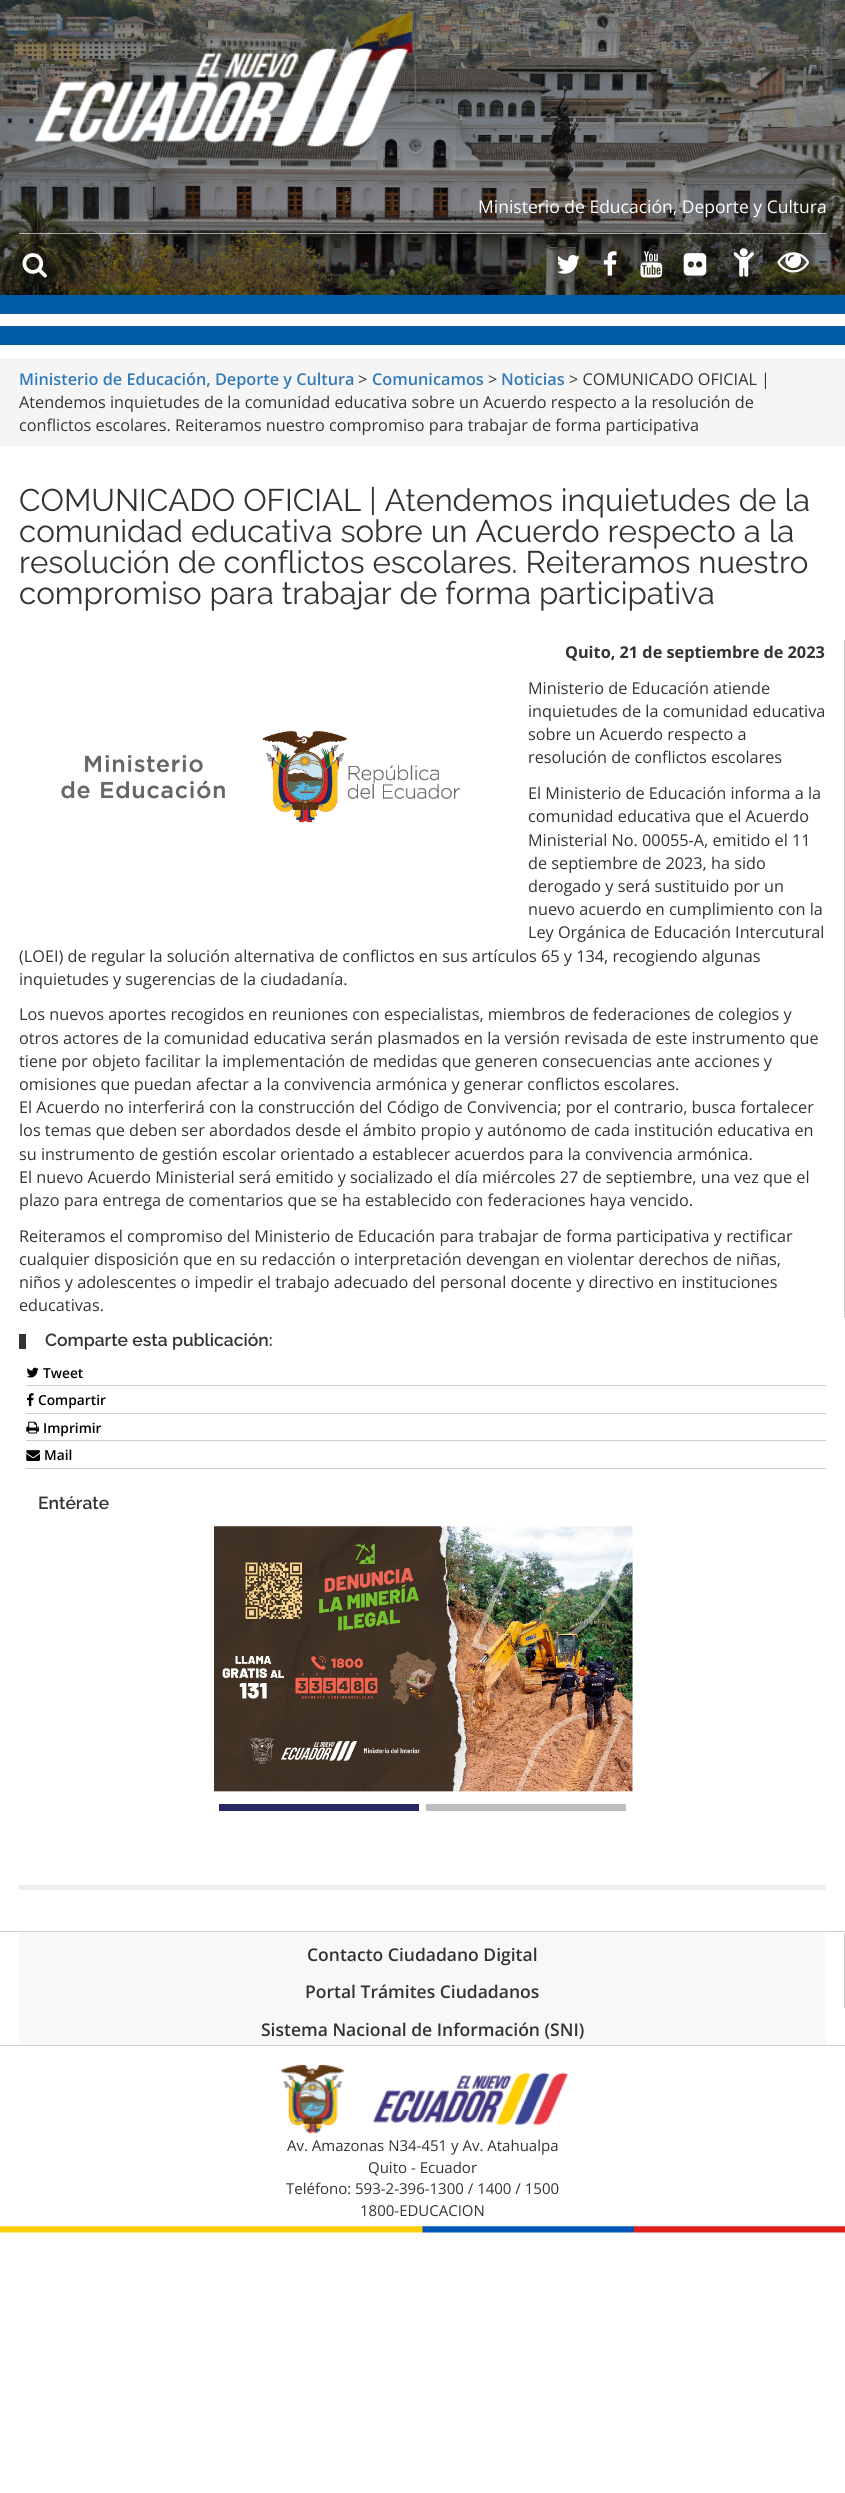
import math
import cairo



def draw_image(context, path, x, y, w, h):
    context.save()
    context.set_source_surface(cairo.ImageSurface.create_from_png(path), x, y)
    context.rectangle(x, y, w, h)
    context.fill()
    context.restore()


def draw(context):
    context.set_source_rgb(1, 1, 1)
    context.paint()
    draw_image(context, "images/1.png", 0, 0, 845, 295)
    draw_image(context, "images/2.png", 35, 48, 373, 99)
    context.set_source_rgba(1, 1, 1, 0.6)
    context.rectangle(19, 233, 807, 1)
    context.fill()
    draw_image(context, "images/3.png", 22, 253, 25, 25)
    draw_image(context, "images/4.png", 557, 255, 23, 19)
    draw_image(context, "images/5.png", 603, 251, 14, 25)
    draw_image(context, "images/6.png", 640, 251, 23, 27)
    draw_image(context, "images/7.png", 683, 253, 24, 23)
    draw_image(context, "images/8.png", 733, 248, 21, 29)
    draw_image(context, "images/9.png", 777, 252, 32, 21)
    context.set_source_rgb(0, 93 / 255, 166 / 255)
    context.rectangle(0, 295, 845, 19)
    context.fill()
    context.rectangle(0, 326, 845, 19)
    context.fill()
    context.set_source_rgb(245 / 255, 245 / 255, 245 / 255)
    context.rectangle(0, 358, 845, 88)
    context.fill()
    context.set_source_rgb(204 / 255, 204 / 255, 204 / 255)
    context.rectangle(844, 640, 1, 678)
    context.fill()
    draw_image(context, "images/10.png", 61, 731, 399, 92)
    context.set_source_rgb(51 / 255, 51 / 255, 51 / 255)
    context.rectangle(19, 1334, 7, 15)
    context.fill()
    context.set_source_rgb(204 / 255, 204 / 255, 204 / 255)
    context.rectangle(26, 1385, 800, 1)
    context.fill()
    draw_image(context, "images/11.png", 26, 1367, 13, 11)
    context.rectangle(26, 1413, 800, 1)
    context.fill()
    draw_image(context, "images/12.png", 27, 1393, 7, 13)
    context.rectangle(26, 1440, 800, 1)
    context.fill()
    draw_image(context, "images/13.png", 26, 1421, 13, 13)
    context.rectangle(26, 1468, 800, 1)
    context.fill()
    draw_image(context, "images/14.png", 26, 1450, 14, 11)
    draw_image(context, "images/15.png", 214, 1526, 419, 266)
    context.set_source_rgb(39 / 255, 41 / 255, 101 / 255)
    context.rectangle(219, 1804, 200, 7)
    context.fill()
    context.set_source_rgb(190 / 255, 190 / 255, 190 / 255)
    context.rectangle(426, 1804, 200, 7)
    context.fill()
    context.set_source_rgb(238 / 255, 238 / 255, 238 / 255)
    context.rectangle(19, 1885, 807, 5)
    context.fill()
    draw_image(context, "images/16.png", 0, 2226, 845, 7)
    context.set_source_rgb(204 / 255, 204 / 255, 204 / 255)
    context.rectangle(0, 1931, 845, 1)
    context.fill()
    context.rectangle(0, 2045, 845, 1)
    context.fill()
    context.rectangle(844, 1933, 1, 75)
    context.fill()
    context.set_source_rgb(248 / 255, 248 / 255, 248 / 255)
    context.rectangle(19, 1933, 806, 75)
    context.fill()
    context.rectangle(19, 2008, 807, 37)
    context.fill()
    draw_image(context, "images/17.png", 281, 2064, 287, 70)
    context.select_font_face("Open Sans")
    context.set_font_size(17.5)
    context.set_source_rgb(1, 1, 1)
    context.move_to(478, 213)
    context.show_text("Ministerio de Educación, Deporte y Cultura")
    context.select_font_face("Open Sans SemiBold")
    context.set_font_size(16.25)
    context.set_source_rgb(51 / 255, 122 / 255, 183 / 255)
    context.move_to(19, 385)
    context.show_text("Ministerio de Educación, Deporte y Cultura")
    context.select_font_face("Open Sans")
    context.set_source_rgb(51 / 255, 51 / 255, 51 / 255)
    context.move_to(358, 385)
    context.show_text(">")
    context.select_font_face("Open Sans SemiBold")
    context.set_source_rgb(51 / 255, 122 / 255, 183 / 255)
    context.move_to(372, 385)
    context.show_text("Comunicamos")
    context.select_font_face("Open Sans")
    context.set_source_rgb(51 / 255, 51 / 255, 51 / 255)
    context.move_to(488, 385)
    context.show_text(">")
    context.select_font_face("Open Sans SemiBold")
    context.set_source_rgb(51 / 255, 122 / 255, 183 / 255)
    context.move_to(501, 385)
    context.show_text("Noticias")
    context.select_font_face("Open Sans")
    context.set_source_rgb(51 / 255, 51 / 255, 51 / 255)
    context.move_to(569, 385)
    context.show_text("> COMUNICADO OFICIAL |")
    context.move_to(19, 408)
    context.show_text("Atendemos inquietudes de la comunidad educativa sobre un Acuerdo respecto a la resolución de")
    context.move_to(19, 431)
    context.show_text("conflictos escolares. Reiteramos nuestro compromiso para trabajar de forma participativa")
    context.select_font_face("Raleway Thin")
    context.set_font_size(31.25)
    context.move_to(19, 511)
    context.show_text("COMUNICADO OFICIAL | Atendemos inquietudes de la")
    context.move_to(19, 542)
    context.show_text("comunidad educativa sobre un Acuerdo respecto a la")
    context.move_to(19, 573)
    context.show_text("resolución de conflictos escolares. Reiteramos nuestro")
    context.move_to(19, 604)
    context.show_text("compromiso para trabajar de forma participativa")
    context.select_font_face("Open Sans", cairo.FontSlant.NORMAL, cairo.FontWeight.BOLD)
    context.set_font_size(16.25)
    context.move_to(565, 658)
    context.show_text("Quito, 21 de septiembre de 2023")
    context.select_font_face("Open Sans")
    context.move_to(528, 694)
    context.show_text("Ministerio de Educación atiende")
    context.move_to(528, 717)
    context.show_text("inquietudes de la comunidad educativa")
    context.move_to(528, 740)
    context.show_text("sobre un Acuerdo respecto a")
    context.move_to(528, 763)
    context.show_text("resolución de conflictos escolares")
    context.move_to(528, 799)
    context.show_text("El Ministerio de Educación informa a la")
    context.move_to(528, 822)
    context.show_text("comunidad educativa que el Acuerdo")
    context.move_to(528, 846)
    context.show_text("Ministerial No. 00055-A, emitido el 11")
    context.move_to(528, 869)
    context.show_text("de septiembre de 2023, ha sido")
    context.move_to(528, 892)
    context.show_text("derogado y será sustituido por un")
    context.move_to(528, 915)
    context.show_text("nuevo acuerdo en cumplimiento con la")
    context.move_to(528, 938)
    context.show_text("Ley Orgánica de Educación Intercutural")
    context.move_to(19, 962)
    context.show_text("(LOEI) de regular la solución alternativa de conflictos en sus artículos 65 y 134, recogiendo algunas")
    context.move_to(19, 985)
    context.show_text("inquietudes y sugerencias de la ciudadanía.")
    context.move_to(19, 1020)
    context.show_text("Los nuevos aportes recogidos en reuniones con especialistas, miembros de federaciones de colegios y")
    context.move_to(19, 1044)
    context.show_text("otros actores de la comunidad educativa serán plasmados en la versión revisada de este instrumento que")
    context.move_to(19, 1067)
    context.show_text("tiene por objeto facilitar la implementación de medidas que generen consecuencias ante acciones y")
    context.move_to(19, 1090)
    context.show_text("omisiones que puedan afectar a la convivencia armónica y generar conflictos escolares.")
    context.move_to(19, 1113)
    context.show_text("El Acuerdo no interferirá con la construcción del Código de Convivencia; por el contrario, busca fortalecer")
    context.move_to(19, 1136)
    context.show_text("los temas que deben ser abordados desde el ámbito propio y autónomo de cada institución educativa en")
    context.move_to(19, 1160)
    context.show_text("su instrumento de gestión escolar orientado a establecer acuerdos para la convivencia armónica.")
    context.move_to(19, 1183)
    context.show_text("El nuevo Acuerdo Ministerial será emitido y socializado el día miércoles 27 de septiembre, una vez que el")
    context.move_to(19, 1206)
    context.show_text("plazo para entrega de comentarios que se ha establecido con federaciones haya vencido.")
    context.move_to(19, 1242)
    context.show_text("Reiteramos el compromiso del Ministerio de Educación para trabajar de forma participativa y rectificar")
    context.move_to(19, 1265)
    context.show_text("cualquier disposición que en su redacción o interpretación devengan en violentar derechos de niñas,")
    context.move_to(19, 1288)
    context.show_text("niños y adolescentes o impedir el trabajo adecuado del personal docente y directivo en instituciones")
    context.move_to(19, 1311)
    context.show_text("educativas.")
    context.select_font_face("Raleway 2 Thin")
    context.set_font_size(17.5)
    context.move_to(45, 1346)
    context.show_text("Comparte esta publicación:")
    context.select_font_face("Open Sans SemiBold")
    context.set_font_size(13.75)
    context.set_source_rgb(1 / 255, 1 / 255, 1 / 255)
    context.move_to(43, 1378)
    context.show_text("Tweet")
    context.move_to(38, 1405)
    context.show_text("Compartir")
    context.move_to(43, 1433)
    context.show_text("Imprimir")
    context.move_to(44, 1460)
    context.show_text("Mail")
    context.select_font_face("Raleway 2 Thin")
    context.set_font_size(17.5)
    context.set_source_rgb(51 / 255, 51 / 255, 51 / 255)
    context.move_to(38, 1509)
    context.show_text("Entérate")
    context.select_font_face("Open Sans SemiBold")
    context.move_to(307, 1961)
    context.show_text("Contacto Ciudadano Digital")
    context.move_to(305, 1998)
    context.show_text("Portal Trámites Ciudadanos")
    context.move_to(261, 2036)
    context.show_text("Sistema Nacional de Información (SNI)")
    context.select_font_face("Open Sans")
    context.set_font_size(15)
    context.move_to(287, 2151)
    context.show_text("Av. Amazonas N34-451 y Av. Atahualpa")
    context.move_to(368, 2173)
    context.show_text("Quito - Ecuador")
    context.move_to(286, 2194)
    context.show_text("Teléfono: 593-2-396-1300 / 1400 / 1500")
    context.move_to(360, 2216)
    context.show_text("1800-EDUCACION")


surface = cairo.ImageSurface(cairo.Format.RGB24, 845, 2493)
context = cairo.Context(surface)
options = cairo.FontOptions()
options.set_hint_metrics(cairo.HintMetrics.OFF)
options.set_hint_style(cairo.HintStyle.NONE)
context.set_font_options(options)
context.set_miter_limit(4)
draw(context)
surface.write_to_png("out.png")
